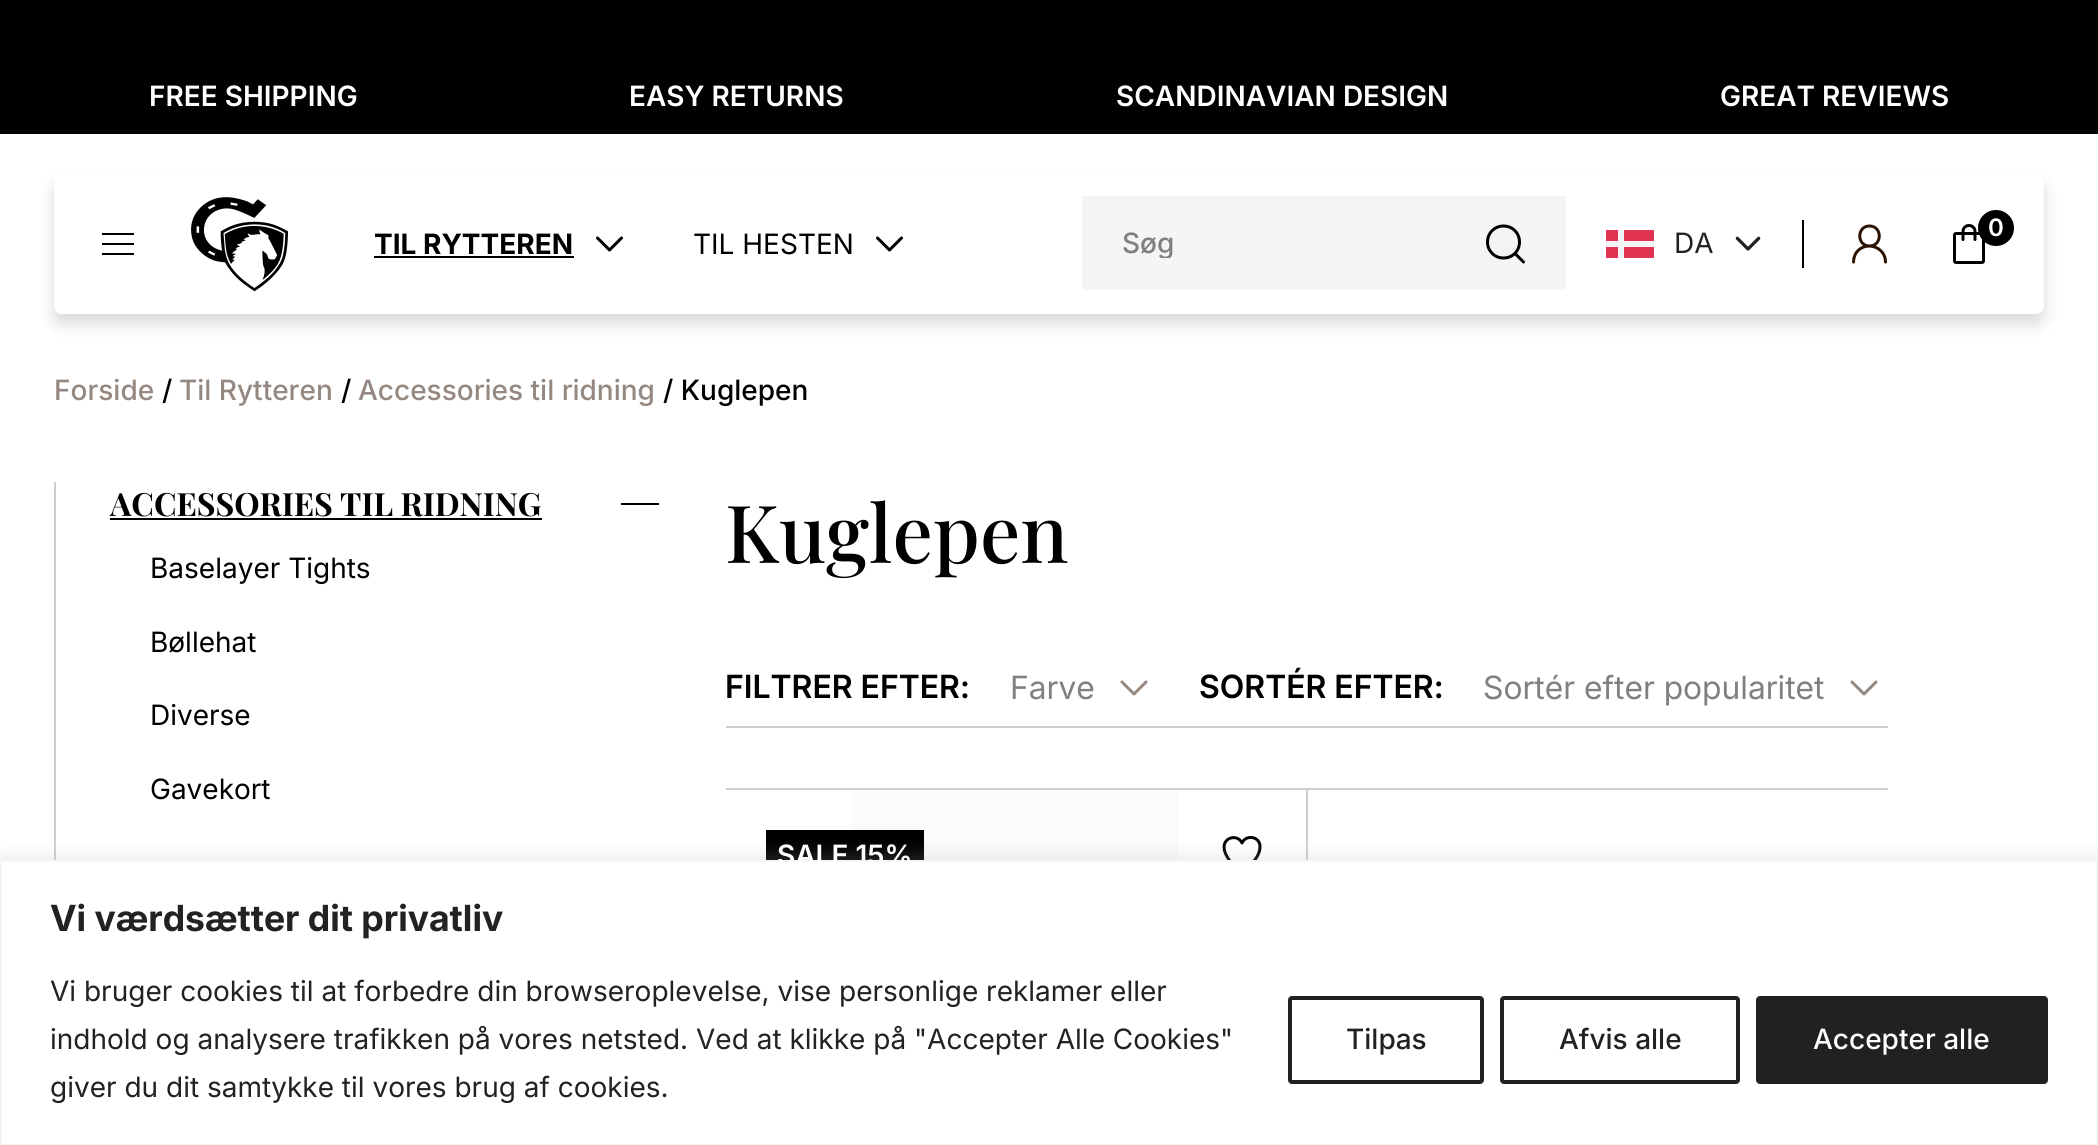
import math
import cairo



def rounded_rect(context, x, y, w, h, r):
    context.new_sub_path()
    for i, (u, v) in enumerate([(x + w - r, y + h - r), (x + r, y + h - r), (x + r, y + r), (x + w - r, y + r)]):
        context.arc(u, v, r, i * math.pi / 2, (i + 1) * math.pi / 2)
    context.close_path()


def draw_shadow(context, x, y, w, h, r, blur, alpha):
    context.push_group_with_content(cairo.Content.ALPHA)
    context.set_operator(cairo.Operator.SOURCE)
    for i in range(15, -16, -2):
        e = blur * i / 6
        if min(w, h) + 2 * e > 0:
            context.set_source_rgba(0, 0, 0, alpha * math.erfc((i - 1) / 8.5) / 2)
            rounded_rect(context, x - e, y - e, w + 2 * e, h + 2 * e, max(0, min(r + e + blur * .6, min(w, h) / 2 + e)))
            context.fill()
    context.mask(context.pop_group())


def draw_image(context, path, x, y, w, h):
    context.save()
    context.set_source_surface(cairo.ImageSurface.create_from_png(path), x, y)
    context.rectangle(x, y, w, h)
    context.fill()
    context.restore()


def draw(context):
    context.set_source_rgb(1, 1, 1)
    context.paint()
    context.set_source_rgb(0, 0, 0)
    context.rectangle(0, 0, 2098, 134)
    context.fill()
    context.set_source_rgb(0, 0, 0)
    draw_shadow(context, 54, 184, 1990, 140, 8, 8, 0.15)
    context.set_source_rgb(1, 1, 1)
    rounded_rect(context, 54, 174, 1990, 140, 8)
    context.fill()
    context.set_source_rgb(0, 0, 0)
    context.rectangle(102, 233, 32, 2)
    context.fill()
    context.rectangle(102, 243, 32, 2)
    context.fill()
    context.rectangle(102, 253, 32, 2)
    context.fill()
    draw_image(context, "images/1.png", 191, 197, 98, 95)
    context.rectangle(374, 256, 200, 2)
    context.fill()
    context.new_path()
    context.move_to(597.5, 238)
    context.line_to(609.5, 250)
    context.line_to(621.5, 238)
    context.set_line_width(3)
    context.set_line_cap(cairo.LineCap.ROUND)
    context.set_line_join(cairo.LineJoin.ROUND)
    context.stroke()
    context.new_path()
    context.move_to(877.5, 238)
    context.line_to(889.5, 250)
    context.line_to(901.5, 238)
    context.stroke()
    context.rectangle(1802, 220, 2, 48)
    context.fill()
    context.new_path()
    context.move_to(1869.5, 246)
    context.curve_to(1882.5, 246, 1882.5, 226, 1869.5, 226)
    context.curve_to(1856.5, 226, 1856.5, 246, 1869.5, 246)
    context.close_path()
    context.move_to(1885.5, 262)
    context.curve_to(1885.5, 246.5, 1865, 240, 1856, 253)
    context.curve_to(1854.5, 255.5, 1853.5, 259, 1853.5, 262)
    context.set_source_rgb(44 / 255, 18 / 255, 0)
    context.stroke()
    draw_image(context, "images/2.png", 1953, 224, 32, 40)
    context.set_source_rgb(0, 0, 0)
    context.arc(1996, 228, 18, 0, 2 * math.pi)
    context.fill()
    context.set_source_rgb(245 / 255, 245 / 255, 245 / 255)
    context.rectangle(1082, 196, 484, 94)
    context.fill()
    context.new_path()
    context.move_to(1523.5, 262)
    context.line_to(1515, 253.5)
    context.move_to(1519.5, 242)
    context.curve_to(1519.5, 251, 1512.5, 258, 1503.5, 258)
    context.curve_to(1494.5, 258, 1487.5, 251, 1487.5, 242)
    context.curve_to(1487.5, 233, 1494.5, 226, 1503.5, 226)
    context.curve_to(1512.5, 226, 1519.5, 233, 1519.5, 242)
    context.close_path()
    context.set_source_rgb(0, 0, 0)
    context.stroke()
    context.set_source_rgb(224 / 255, 51 / 255, 82 / 255)
    context.rectangle(1606, 230, 48, 28)
    context.fill()
    context.save()
    context.rectangle(1606, 230, 48, 28)
    context.clip()
    context.set_source_rgb(243 / 255, 243 / 255, 243 / 255)
    context.new_path()
    context.move_to(1624, 228)
    context.line_to(1618, 228)
    context.line_to(1618, 241)
    context.line_to(1606, 241)
    context.line_to(1606, 247)
    context.line_to(1618, 247)
    context.line_to(1618, 260)
    context.line_to(1624, 260)
    context.line_to(1624, 247)
    context.line_to(1654, 247)
    context.line_to(1654, 241)
    context.line_to(1624, 241)
    context.close_path()
    context.fill()
    context.restore()
    draw_image(context, "images/3.png", 1735, 236, 26, 15)
    context.set_source_rgb(206 / 255, 206 / 255, 206 / 255)
    context.rectangle(54, 482, 2, 378)
    context.fill()
    context.set_source_rgb(0, 0, 0)
    context.rectangle(110, 518, 432, 2)
    context.fill()
    context.rectangle(621, 503, 38, 2)
    context.fill()
    context.set_source_rgb(206 / 255, 206 / 255, 206 / 255)
    context.rectangle(726, 726, 1162, 2)
    context.fill()
    context.new_path()
    context.move_to(1122, 682)
    context.line_to(1134, 694)
    context.line_to(1146, 682)
    context.set_source_rgb(149 / 255, 136 / 255, 128 / 255)
    context.stroke()
    context.new_path()
    context.move_to(1852, 682)
    context.line_to(1864, 694)
    context.line_to(1876, 682)
    context.stroke()
    context.set_source_rgb(206 / 255, 206 / 255, 206 / 255)
    context.rectangle(726, 788, 1162, 2)
    context.fill()
    context.rectangle(1306, 790, 2, 70)
    context.fill()
    draw_image(context, "images/4.png", 852, 790, 326, 70)
    context.set_source_rgb(0, 0, 0)
    context.rectangle(766, 830, 158, 30)
    context.fill()
    context.new_path()
    context.move_to(1260, 846.5)
    context.curve_to(1260, 836.5, 1246, 834, 1242, 843)
    context.curve_to(1237, 832, 1216.5, 838.5, 1227, 856.5)
    context.curve_to(1230, 862.5, 1236, 867.5, 1242, 870.5)
    context.curve_to(1242, 870.5, 1260, 861, 1260, 846.5)
    context.close_path()
    context.stroke()
    context.set_source_rgb(172 / 255, 171 / 255, 171 / 255)
    draw_shadow(context, 0, 858, 2098, 286, 0, 10, 0.3)
    context.set_source_rgb(1, 1, 1)
    context.rectangle(1, 861, 2096, 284)
    context.fill_preserve()
    context.set_source_rgb(244 / 255, 244 / 255, 244 / 255)
    context.set_line_width(2)
    context.set_line_cap(cairo.LineCap.BUTT)
    context.set_line_join(cairo.LineJoin.MITER)
    context.stroke()
    rounded_rect(context, 1290, 998, 192, 84, 2)
    context.set_source_rgb(33 / 255, 33 / 255, 33 / 255)
    context.set_line_width(4)
    context.stroke()
    rounded_rect(context, 1502, 998, 236, 84, 2)
    context.stroke()
    rounded_rect(context, 1758, 998, 288, 84, 2)
    context.fill_preserve()
    context.stroke()
    context.select_font_face("Inter SemiBold")
    context.set_font_size(28)
    context.set_source_rgb(1, 1, 1)
    context.move_to(149, 106)
    context.show_text("FREE SHIPPING")
    context.move_to(629, 106)
    context.show_text("EASY RETURNS")
    context.move_to(1116, 106)
    context.show_text("SCANDINAVIAN DESIGN")
    context.move_to(1720, 106)
    context.show_text("GREAT REVIEWS")
    context.select_font_face("Inter", cairo.FontSlant.NORMAL, cairo.FontWeight.BOLD)
    context.set_source_rgb(0, 0, 0)
    context.move_to(374, 254)
    context.show_text("TIL RYTTEREN")
    context.select_font_face("Inter")
    context.move_to(693, 254)
    context.show_text("TIL HESTEN")
    context.select_font_face("Inter SemiBold")
    context.set_font_size(24)
    context.set_source_rgb(1, 1, 1)
    context.move_to(1988, 236)
    context.show_text("0")
    context.save()
    context.rectangle(1122, 224, 312, 34)
    context.clip()
    context.select_font_face("Inter Medium")
    context.set_font_size(28)
    context.set_source_rgb(128 / 255, 128 / 255, 128 / 255)
    context.move_to(1122, 253)
    context.show_text("Søg")
    context.restore()
    context.select_font_face("Inter")
    context.set_font_size(28)
    context.set_source_rgb(34 / 255, 34 / 255, 34 / 255)
    context.move_to(1674, 253)
    context.show_text("DA")
    context.select_font_face("Inter Medium")
    context.set_source_rgb(149 / 255, 136 / 255, 128 / 255)
    context.move_to(54, 400)
    context.show_text("Forside")
    context.set_source_rgb(0, 0, 0)
    context.move_to(162, 400)
    context.show_text("/")
    context.set_source_rgb(149 / 255, 136 / 255, 128 / 255)
    context.move_to(179, 400)
    context.show_text("Til Rytteren")
    context.set_source_rgb(0, 0, 0)
    context.move_to(341, 400)
    context.show_text("/")
    context.set_source_rgb(149 / 255, 136 / 255, 128 / 255)
    context.move_to(358, 400)
    context.show_text("Accessories til ridning")
    context.set_source_rgb(0, 0, 0)
    context.move_to(663, 400)
    context.show_text("/ Kuglepen")
    context.select_font_face("Playfair Display", cairo.FontSlant.NORMAL, cairo.FontWeight.BOLD)
    context.set_font_size(32)
    context.move_to(110, 516)
    context.show_text("ACCESSORIES TIL RIDNING")
    context.select_font_face("Inter")
    context.set_font_size(28)
    context.move_to(150, 578)
    context.show_text("Baselayer Tights")
    context.move_to(150, 652)
    context.show_text("Bøllehat")
    context.move_to(150, 725)
    context.show_text("Diverse")
    context.move_to(150, 799)
    context.show_text("Gavekort")
    context.select_font_face("Playfair Display Medium")
    context.set_font_size(80)
    context.move_to(725, 563)
    context.show_text("Kuglepen")
    context.select_font_face("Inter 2 SemiBold")
    context.set_font_size(32)
    context.move_to(725, 698)
    context.show_text("FILTRER EFTER:")
    context.select_font_face("Inter 2")
    context.set_source_rgb(128 / 255, 128 / 255, 128 / 255)
    context.move_to(1010, 699)
    context.show_text("Farve")
    context.select_font_face("Inter 2 SemiBold")
    context.set_source_rgb(0, 0, 0)
    context.move_to(1199, 698)
    context.show_text("SORTÉR EFTER:")
    context.select_font_face("Inter 2")
    context.set_source_rgb(128 / 255, 128 / 255, 128 / 255)
    context.move_to(1483, 699)
    context.show_text("Sortér efter popularitet")
    context.select_font_face("Inter SemiBold")
    context.set_font_size(28)
    context.set_source_rgb(1, 1, 1)
    context.move_to(777, 865)
    context.show_text("SALE 15%")
    context.select_font_face("Inter 2", cairo.FontSlant.NORMAL, cairo.FontWeight.BOLD)
    context.set_font_size(36)
    context.set_source_rgb(34 / 255, 34 / 255, 34 / 255)
    context.move_to(50, 931)
    context.show_text("Vi værdsætter dit privatliv")
    context.select_font_face("Inter")
    context.set_font_size(28)
    context.move_to(50, 1001)
    context.show_text("Vi bruger cookies til at forbedre din browseroplevelse, vise personlige reklamer eller")
    context.move_to(50, 1049)
    context.show_text("indhold og analysere trafikken på vores netsted. Ved at klikke på \"Accepter Alle Cookies\"")
    context.move_to(50, 1097)
    context.show_text("giver du dit samtykke til vores brug af cookies.")
    context.select_font_face("Inter Medium")
    context.move_to(1346, 1049)
    context.show_text("Tilpas")
    context.move_to(1559, 1049)
    context.show_text("Afvis alle")
    context.set_source_rgb(1, 1, 1)
    context.move_to(1813, 1049)
    context.show_text("Accepter alle")


surface = cairo.ImageSurface(cairo.Format.RGB24, 2098, 1145)
context = cairo.Context(surface)
options = cairo.FontOptions()
options.set_hint_metrics(cairo.HintMetrics.OFF)
options.set_hint_style(cairo.HintStyle.NONE)
context.set_font_options(options)
context.set_miter_limit(4)
draw(context)
surface.write_to_png("out.png")
